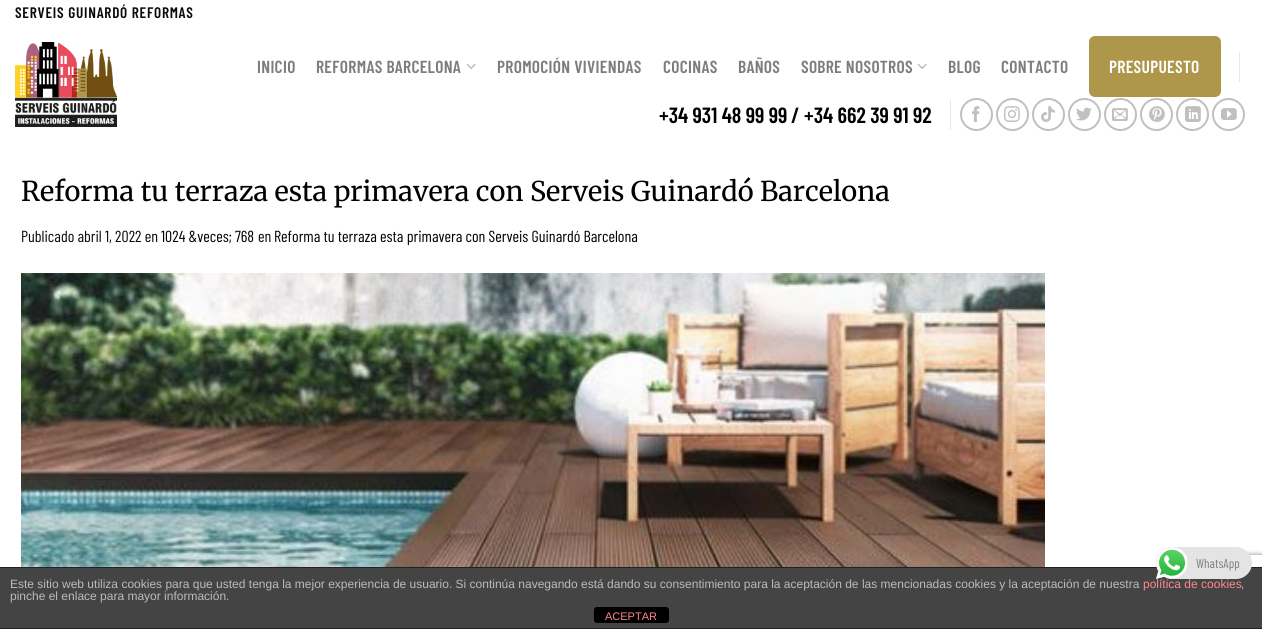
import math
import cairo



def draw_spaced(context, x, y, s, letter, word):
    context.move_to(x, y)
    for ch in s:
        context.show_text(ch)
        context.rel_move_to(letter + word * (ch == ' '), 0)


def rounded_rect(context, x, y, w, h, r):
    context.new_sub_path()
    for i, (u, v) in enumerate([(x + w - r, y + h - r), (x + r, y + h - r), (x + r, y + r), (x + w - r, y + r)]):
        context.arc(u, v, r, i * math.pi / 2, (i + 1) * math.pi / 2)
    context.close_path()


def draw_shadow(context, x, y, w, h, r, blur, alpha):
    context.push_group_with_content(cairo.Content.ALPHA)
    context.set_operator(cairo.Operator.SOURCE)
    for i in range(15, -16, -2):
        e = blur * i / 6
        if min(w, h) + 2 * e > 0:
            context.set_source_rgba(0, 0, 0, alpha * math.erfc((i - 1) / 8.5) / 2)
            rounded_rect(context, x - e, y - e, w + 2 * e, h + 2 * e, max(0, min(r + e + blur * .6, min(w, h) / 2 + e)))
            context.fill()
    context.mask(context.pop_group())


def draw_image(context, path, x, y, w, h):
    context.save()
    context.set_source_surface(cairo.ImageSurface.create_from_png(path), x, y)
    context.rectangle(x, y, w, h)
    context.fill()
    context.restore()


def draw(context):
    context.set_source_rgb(1, 1, 1)
    context.paint()
    draw_image(context, "images/1.png", 15, 42, 102, 85)
    draw_image(context, "images/2.png", 466, 63, 10, 6)
    draw_image(context, "images/2.png", 917, 63, 10, 6)
    context.set_source_rgb(174 / 255, 151 / 255, 75 / 255)
    rounded_rect(context, 1089, 36, 132, 61, 6)
    context.fill()
    context.set_source_rgb(230 / 255, 230 / 255, 230 / 255)
    context.rectangle(1239, 52, 1, 30)
    context.fill()
    context.rectangle(950, 100, 1, 30)
    context.fill()
    context.arc(976.5, 114.5, 15.5, 0, 2 * math.pi)
    context.set_source_rgb(192 / 255, 192 / 255, 192 / 255)
    context.stroke()
    draw_image(context, "images/3.png", 972, 106, 8, 16)
    context.arc(1012.5, 114.5, 15.5, 0, 2 * math.pi)
    context.stroke()
    draw_image(context, "images/4.png", 1004, 106, 16, 16)
    context.arc(1048.5, 114.5, 15.5, 0, 2 * math.pi)
    context.stroke()
    draw_image(context, "images/5.png", 1041, 106, 14, 16)
    context.arc(1084.5, 114.5, 15.5, 0, 2 * math.pi)
    context.stroke()
    draw_image(context, "images/6.png", 1076, 107, 16, 14)
    context.arc(1120.5, 114.5, 15.5, 0, 2 * math.pi)
    context.stroke()
    draw_image(context, "images/7.png", 1112, 108, 16, 13)
    context.arc(1156.5, 114.5, 15.5, 0, 2 * math.pi)
    context.stroke()
    draw_image(context, "images/8.png", 1149, 106, 16, 16)
    context.arc(1192.5, 114.5, 15.5, 0, 2 * math.pi)
    context.stroke()
    draw_image(context, "images/9.png", 1185, 106, 16, 16)
    context.arc(1228.5, 114.5, 15.5, 0, 2 * math.pi)
    context.stroke()
    draw_image(context, "images/10.png", 1221, 108, 16, 12)
    draw_image(context, "images/11.png", 21, 273, 1024, 294)
    context.save()
    context.rectangle(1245, 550, 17, 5)
    context.clip()
    context.set_source_rgb(128 / 255, 128 / 255, 128 / 255)
    draw_shadow(context, 1192, 555, 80, 60, 2, 2.5, 1)
    context.restore()
    context.set_source_rgb(68 / 255, 68 / 255, 68 / 255)
    context.rectangle(0, 568, 1262, 60)
    context.fill()
    context.set_source_rgb(34 / 255, 34 / 255, 34 / 255)
    context.rectangle(0, 567, 1262, 1)
    context.fill()
    context.set_source_rgb(228 / 255, 228 / 255, 228 / 255)
    rounded_rect(context, 1156, 547, 96, 32, 16)
    context.fill()
    draw_image(context, "images/12.png", 1156, 547, 32, 32)
    context.set_source_rgb(34 / 255, 34 / 255, 34 / 255)
    context.rectangle(0, 628, 1262, 1)
    context.fill()
    context.set_source_rgb(0, 0, 0)
    rounded_rect(context, 594, 607, 75, 16, 3)
    context.fill()
    context.select_font_face("Barlow Condensed SemiBold")
    context.set_font_size(15.25)
    context.set_source_rgb(10 / 255, 10 / 255, 10 / 255)
    draw_spaced(context, 15, 18, "SERVEIS GUINARDÓ REFORMAS", 0.75, 0)
    context.set_font_size(17.5)
    context.set_source_rgb(125 / 255, 125 / 255, 125 / 255)
    draw_spaced(context, 257, 73, "INICIO", 0.3, 0)
    draw_spaced(context, 316, 73, "REFORMAS BARCELONA", 0.3, 0)
    draw_spaced(context, 497, 73, "PROMOCIÓN VIVIENDAS", 0.3, 0)
    draw_spaced(context, 663, 73, "COCINAS", 0.3, 0)
    draw_spaced(context, 738, 73, "BAÑOS", 0.3, 0)
    draw_spaced(context, 801, 73, "SOBRE NOSOTROS", 0.3, 0)
    draw_spaced(context, 948, 73, "BLOG", 0.3, 0)
    draw_spaced(context, 1001, 73, "CONTACTO", 0.3, 0)
    context.set_source_rgb(1, 1, 1)
    draw_spaced(context, 1109, 73, "PRESUPUESTO", 0.3, 0)
    context.set_font_size(22)
    context.set_source_rgb(0, 0, 0)
    context.move_to(659, 123)
    context.show_text("+34 931 48 99 99")
    context.set_source_rgb(10 / 255, 10 / 255, 10 / 255)
    context.move_to(791, 123)
    context.show_text("/")
    context.set_source_rgb(0, 0, 0)
    context.move_to(804, 123)
    context.show_text("+34 662 39 91 92")
    context.select_font_face("Merriweather Light")
    context.set_font_size(27.2)
    context.move_to(21, 201)
    context.show_text("Reforma tu terraza esta primavera con Serveis Guinardó Barcelona")
    context.select_font_face("Barlow Condensed")
    context.set_font_size(16)
    context.set_source_rgb(10 / 255, 10 / 255, 10 / 255)
    context.move_to(21, 242)
    context.show_text("Publicado abril 1, 2022 en")
    context.set_source_rgb(0, 0, 0)
    context.move_to(161, 242)
    context.show_text("1024 &veces; 768")
    context.set_source_rgb(10 / 255, 10 / 255, 10 / 255)
    context.move_to(258, 242)
    context.show_text("en")
    context.set_source_rgb(0, 0, 0)
    context.move_to(274, 242)
    context.show_text("Reforma tu terraza esta primavera con Serveis Guinardó Barcelona")
    context.set_font_size(13)
    context.set_source_rgb(125 / 255, 125 / 255, 125 / 255)
    context.move_to(1196, 568)
    context.show_text("WhatsApp")
    context.select_font_face("Liberation Sans")
    context.set_font_size(12)
    context.set_source_rgb(187 / 255, 187 / 255, 187 / 255)
    context.move_to(10, 588)
    context.show_text("Este sitio web utiliza cookies para que usted tenga la mejor experiencia de usuario. Si continúa navegando está dando su consentimiento para la aceptación de las mencionadas cookies y la aceptación de nuestra")
    context.set_source_rgb(1, 136 / 255, 136 / 255)
    context.move_to(1143, 588)
    context.show_text("política de cookies")
    context.set_source_rgb(187 / 255, 187 / 255, 187 / 255)
    context.move_to(1241, 588)
    context.show_text(",")
    context.move_to(10, 600)
    context.show_text("pinche el enlace para mayor información.")
    context.set_font_size(11)
    context.set_source_rgb(1, 136 / 255, 136 / 255)
    context.move_to(605, 620)
    context.show_text("ACEPTAR")


surface = cairo.ImageSurface(cairo.Format.RGB24, 1262, 629)
context = cairo.Context(surface)
options = cairo.FontOptions()
options.set_hint_metrics(cairo.HintMetrics.OFF)
options.set_hint_style(cairo.HintStyle.NONE)
context.set_font_options(options)
context.set_miter_limit(4)
draw(context)
surface.write_to_png("out.png")
